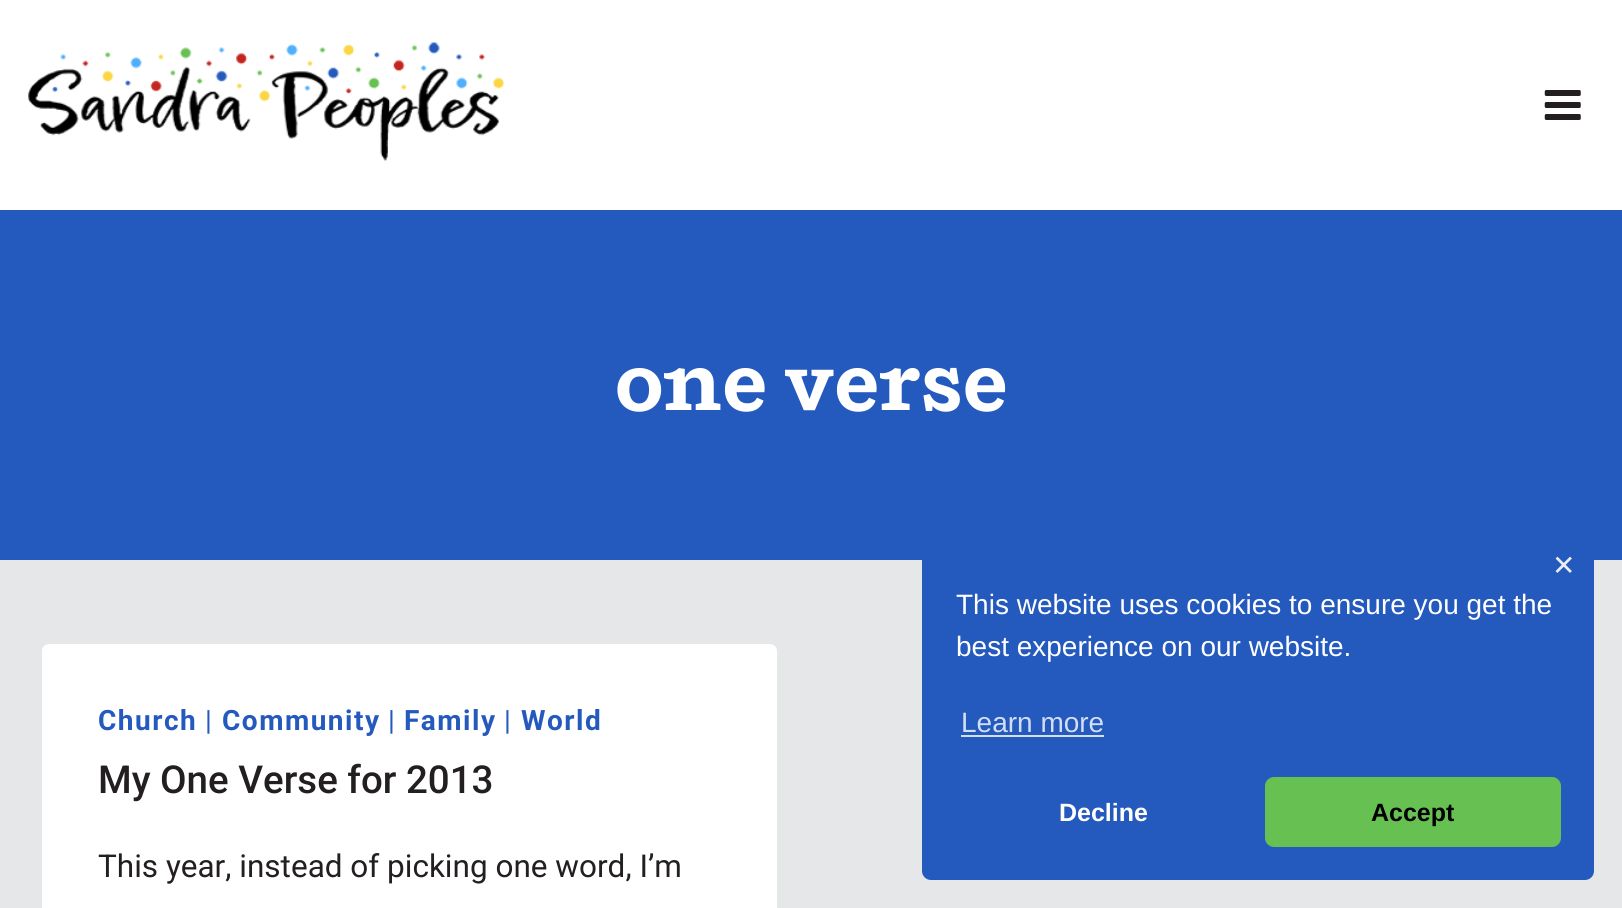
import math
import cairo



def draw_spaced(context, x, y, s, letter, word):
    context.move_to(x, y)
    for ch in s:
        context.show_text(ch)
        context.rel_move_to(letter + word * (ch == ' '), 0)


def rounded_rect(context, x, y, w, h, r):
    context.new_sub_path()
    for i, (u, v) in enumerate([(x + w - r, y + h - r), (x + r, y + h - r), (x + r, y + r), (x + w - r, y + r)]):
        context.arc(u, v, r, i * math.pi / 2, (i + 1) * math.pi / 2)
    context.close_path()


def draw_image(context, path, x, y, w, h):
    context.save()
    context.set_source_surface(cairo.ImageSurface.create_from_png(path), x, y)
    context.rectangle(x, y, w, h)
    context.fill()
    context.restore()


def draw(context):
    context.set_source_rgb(230 / 255, 231 / 255, 232 / 255)
    context.paint()
    context.set_source_rgb(1, 1, 1)
    context.rectangle(0, 0, 1622, 210)
    context.fill()
    draw_image(context, "images/1.png", 28, 42, 476, 119)
    draw_image(context, "images/2.png", 1544, 90, 37, 30)
    context.set_source_rgb(36 / 255, 89 / 255, 190 / 255)
    context.rectangle(0, 210, 1622, 350)
    context.fill()
    context.set_source_rgb(1, 1, 1)
    rounded_rect(context, 42, 644, 735, 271, 7)
    context.fill()
    context.set_source_rgb(36 / 255, 89 / 255, 190 / 255)
    rounded_rect(context, 922, 551, 672, 329, 9)
    context.fill()
    context.set_source_rgb(211 / 255, 222 / 255, 242 / 255)
    context.rectangle(961, 735, 143, 2)
    context.fill()
    context.set_source_rgb(103 / 255, 192 / 255, 82 / 255)
    rounded_rect(context, 1267, 779, 292, 66, 7)
    context.fill_preserve()
    context.set_line_width(4)
    context.stroke()
    context.select_font_face("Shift", cairo.FontSlant.NORMAL, cairo.FontWeight.BOLD)
    context.set_font_size(80.5)
    context.set_source_rgb(1, 1, 1)
    context.move_to(615, 410)
    context.show_text("one verse")
    context.select_font_face("Roboto", cairo.FontSlant.NORMAL, cairo.FontWeight.BOLD)
    context.set_font_size(28)
    context.set_source_rgb(36 / 255, 89 / 255, 190 / 255)
    draw_spaced(context, 98, 730, "Church", 1.5, 0)
    context.select_font_face("Roboto")
    draw_spaced(context, 205, 730, "|", 1.5, 0)
    context.select_font_face("Roboto", cairo.FontSlant.NORMAL, cairo.FontWeight.BOLD)
    draw_spaced(context, 222, 730, "Community", 1.5, 0)
    context.select_font_face("Roboto")
    draw_spaced(context, 388, 730, "|", 1.5, 0)
    context.select_font_face("Roboto", cairo.FontSlant.NORMAL, cairo.FontWeight.BOLD)
    draw_spaced(context, 404, 730, "Family", 1.5, 0)
    context.select_font_face("Roboto")
    draw_spaced(context, 504, 730, "|", 1.5, 0)
    context.select_font_face("Roboto", cairo.FontSlant.NORMAL, cairo.FontWeight.BOLD)
    draw_spaced(context, 521, 730, "World", 1.5, 0)
    context.select_font_face("Roboto Medium")
    context.set_font_size(38.5)
    context.set_source_rgb(35 / 255, 31 / 255, 32 / 255)
    context.move_to(98, 793)
    context.show_text("My One Verse for 2013")
    context.select_font_face("Roboto")
    context.set_font_size(31.5)
    context.move_to(98, 877)
    context.show_text("This year, instead of picking one word, I’m")
    context.select_font_face("DejaVu Sans")
    context.set_font_size(28)
    context.set_source_rgb(233 / 255, 238 / 255, 249 / 255)
    context.move_to(1552, 575)
    context.show_text("✕")
    context.select_font_face("Liberation Sans")
    context.set_source_rgb(1, 1, 1)
    context.move_to(956, 614)
    context.show_text("This website uses cookies to ensure you get the")
    context.move_to(956, 656)
    context.show_text("best experience on our website.")
    context.set_source_rgb(211 / 255, 222 / 255, 242 / 255)
    context.move_to(961, 732)
    context.show_text("Learn more")
    context.select_font_face("Liberation Sans", cairo.FontSlant.NORMAL, cairo.FontWeight.BOLD)
    context.set_font_size(25)
    context.set_source_rgb(1, 1, 1)
    context.move_to(1059, 821)
    context.show_text("Decline")
    context.set_source_rgb(0, 0, 0)
    context.move_to(1371, 821)
    context.show_text("Accept")


surface = cairo.ImageSurface(cairo.Format.RGB24, 1622, 908)
context = cairo.Context(surface)
options = cairo.FontOptions()
options.set_hint_metrics(cairo.HintMetrics.OFF)
options.set_hint_style(cairo.HintStyle.NONE)
context.set_font_options(options)
context.set_miter_limit(4)
draw(context)
surface.write_to_png("out.png")
